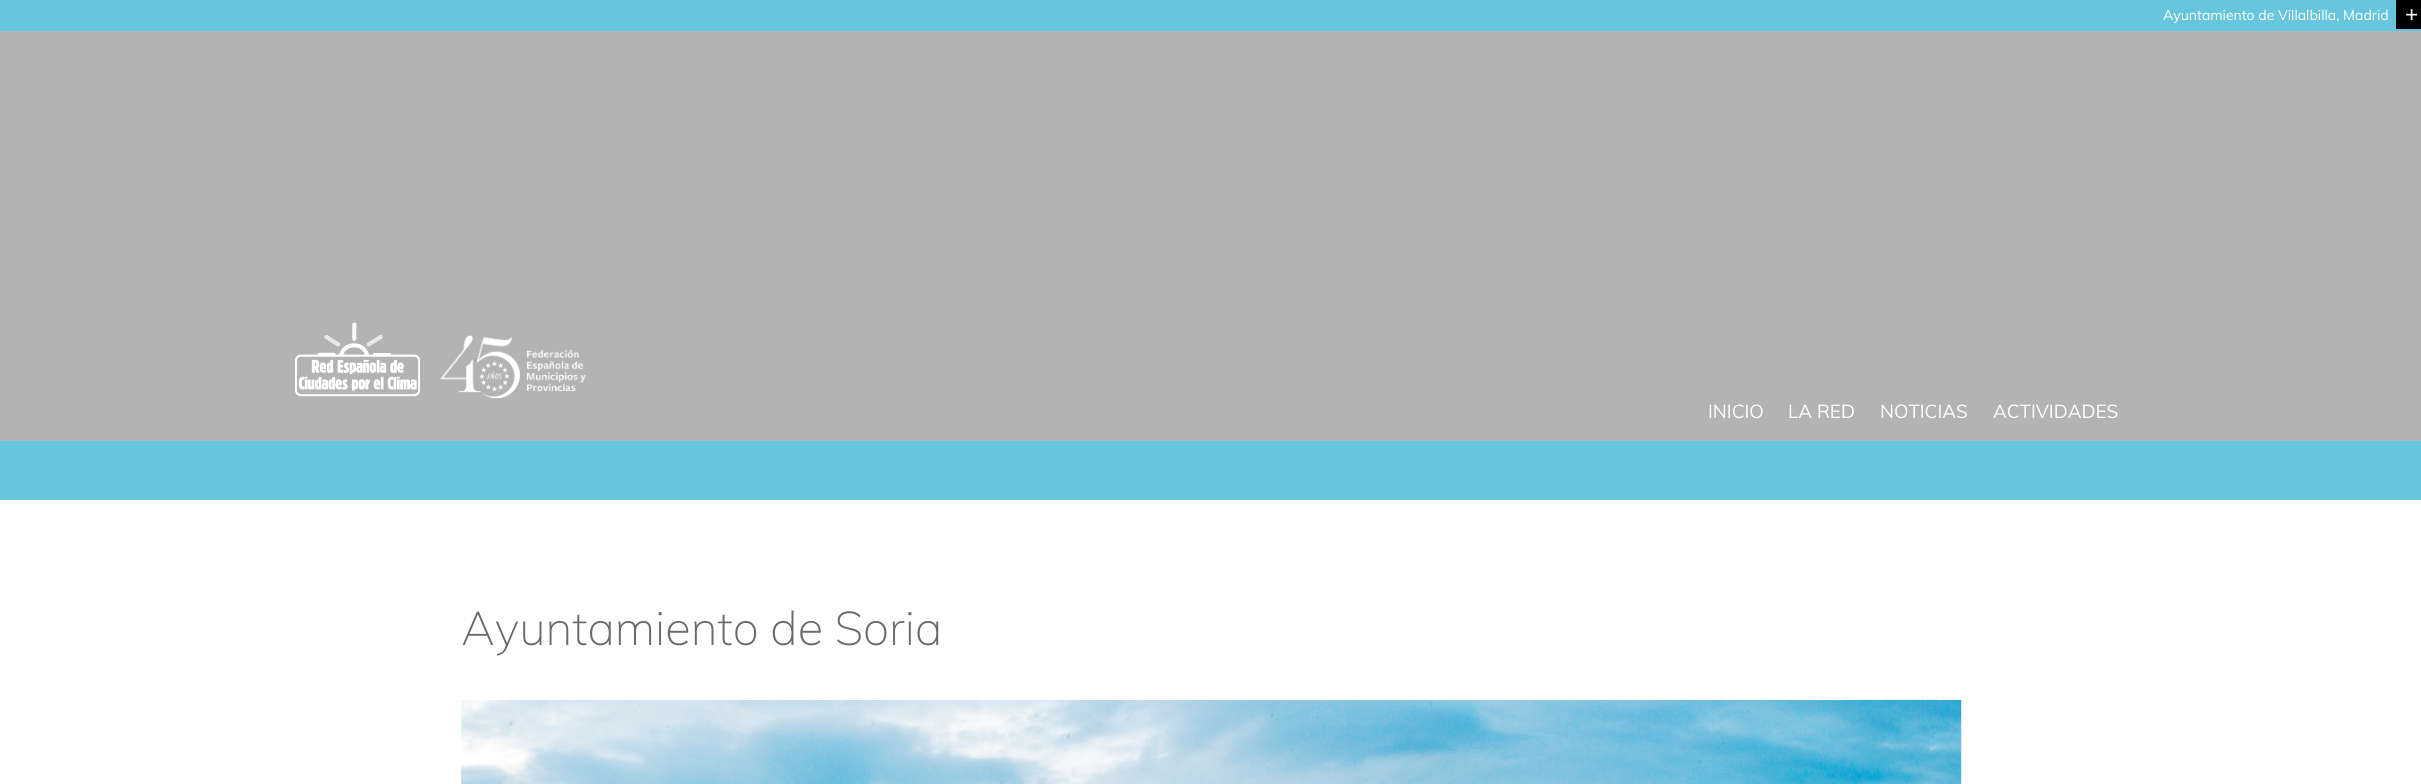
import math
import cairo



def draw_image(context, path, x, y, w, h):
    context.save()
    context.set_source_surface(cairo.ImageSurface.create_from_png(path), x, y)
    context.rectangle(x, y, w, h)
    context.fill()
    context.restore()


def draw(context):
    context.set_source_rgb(1, 1, 1)
    context.paint()
    context.set_source_rgb(179 / 255, 179 / 255, 179 / 255)
    context.rectangle(0, 31, 2421, 265)
    context.fill()
    context.set_source_rgb(103 / 255, 198 / 255, 221 / 255)
    context.rectangle(0, 0, 2421, 31)
    context.fill()
    context.set_source_rgb(0, 0, 0)
    context.rectangle(2396, 0, 25, 29)
    context.fill()
    gradient = cairo.LinearGradient(1211, 296, 1211, 500)
    gradient.add_color_stop_rgba(0, 179 / 255, 179 / 255, 179 / 255, 1)
    gradient.add_color_stop_rgba(0.71, 179 / 255, 179 / 255, 179 / 255, 1)
    gradient.add_color_stop_rgba(0.71, 103 / 255, 198 / 255, 221 / 255, 1)
    gradient.add_color_stop_rgba(1, 103 / 255, 198 / 255, 221 / 255, 1)
    context.set_source(gradient)
    context.rectangle(0, 296, 2421, 204)
    context.fill()
    draw_image(context, "images/1.png", 295, 322, 125, 75)
    draw_image(context, "images/2.png", 440, 335, 146, 64)
    draw_image(context, "images/3.png", 461, 700, 1501, 84)
    context.select_font_face("Muli")
    context.set_font_size(14)
    context.set_source_rgb(1, 1, 1)
    context.move_to(2163, 20)
    context.show_text("Ayuntamiento de Villalbilla, Madrid")
    context.select_font_face("Muli SemiBold")
    context.set_font_size(22)
    context.move_to(2405, 21)
    context.show_text("+")
    context.select_font_face("Muli")
    context.set_font_size(18.75)
    context.move_to(1708, 418)
    context.show_text("INICIO")
    context.move_to(1788, 418)
    context.show_text("LA RED")
    context.move_to(1880, 418)
    context.show_text("NOTICIAS")
    context.move_to(1993, 418)
    context.show_text("ACTIVIDADES")
    context.select_font_face("Muli ExtraLight")
    context.set_font_size(46.9)
    context.set_source_rgb(105 / 255, 105 / 255, 105 / 255)
    context.move_to(461, 645)
    context.show_text("Ayuntamiento de Soria")


surface = cairo.ImageSurface(cairo.Format.RGB24, 2421, 784)
context = cairo.Context(surface)
options = cairo.FontOptions()
options.set_hint_metrics(cairo.HintMetrics.OFF)
options.set_hint_style(cairo.HintStyle.NONE)
context.set_font_options(options)
context.set_miter_limit(4)
draw(context)
surface.write_to_png("out.png")
